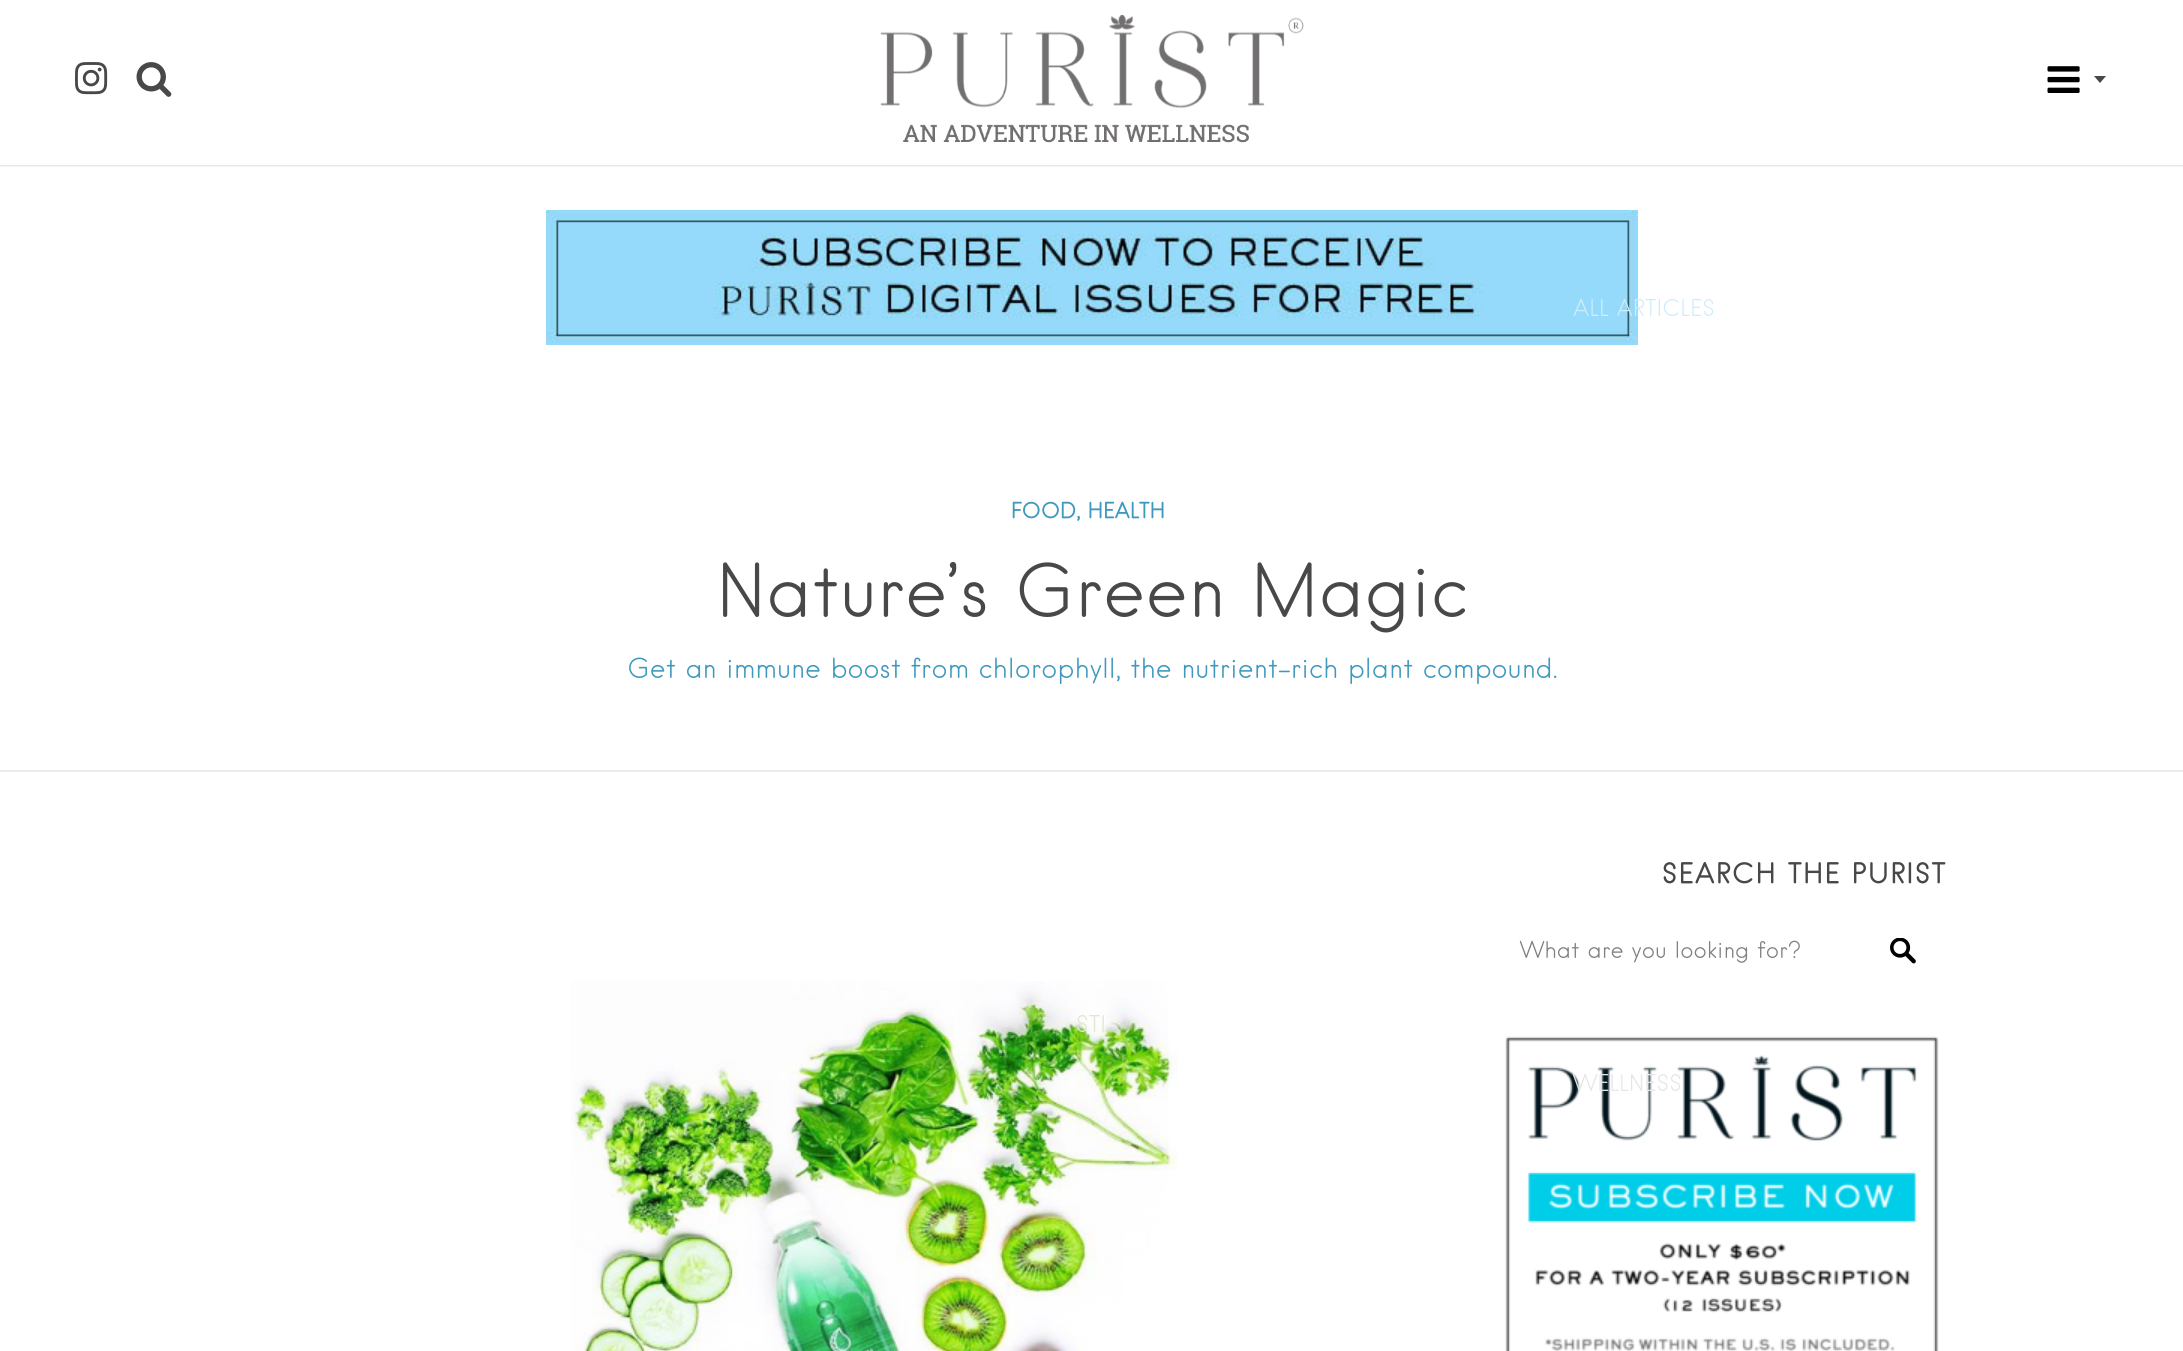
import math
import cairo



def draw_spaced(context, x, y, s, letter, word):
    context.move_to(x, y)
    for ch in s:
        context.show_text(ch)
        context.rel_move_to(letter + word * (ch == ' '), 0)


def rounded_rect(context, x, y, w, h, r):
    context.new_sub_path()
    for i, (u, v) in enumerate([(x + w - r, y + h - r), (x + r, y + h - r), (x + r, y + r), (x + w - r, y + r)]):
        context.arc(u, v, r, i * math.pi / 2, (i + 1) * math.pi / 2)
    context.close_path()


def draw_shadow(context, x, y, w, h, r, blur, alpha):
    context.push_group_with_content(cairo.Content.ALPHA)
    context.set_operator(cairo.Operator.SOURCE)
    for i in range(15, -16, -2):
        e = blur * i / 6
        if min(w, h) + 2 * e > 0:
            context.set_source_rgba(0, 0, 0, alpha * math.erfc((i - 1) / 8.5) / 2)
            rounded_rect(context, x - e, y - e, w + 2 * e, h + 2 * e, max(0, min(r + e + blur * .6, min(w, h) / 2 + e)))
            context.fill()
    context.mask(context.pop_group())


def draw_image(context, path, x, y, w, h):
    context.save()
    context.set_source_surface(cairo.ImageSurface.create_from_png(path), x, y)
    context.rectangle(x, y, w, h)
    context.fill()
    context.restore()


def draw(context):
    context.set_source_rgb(1, 1, 1)
    context.paint()
    draw_image(context, "images/1.png", 546, 210, 1092, 135)
    context.save()
    context.rectangle(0, 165, 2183, 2)
    context.clip()
    context.set_source_rgb(0, 0, 0)
    draw_shadow(context, 0, 0, 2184, 165, 0, 1.5, 0.25)
    context.restore()
    draw_image(context, "images/2.png", 75, 62, 33, 33)
    draw_image(context, "images/3.png", 136, 62, 36, 35)
    draw_image(context, "images/4.png", 880, 15, 424, 128)
    draw_image(context, "images/5.png", 2047, 66, 33, 27)
    context.set_source_rgb(72 / 255, 72 / 255, 72 / 255)
    context.new_path()
    context.move_to(2094, 76)
    context.line_to(2106, 76)
    context.line_to(2100, 83)
    context.close_path()
    context.fill()
    context.set_source_rgb(236 / 255, 236 / 255, 236 / 255)
    context.rectangle(0, 770, 2183, 2)
    context.fill()
    draw_image(context, "images/6.png", 1890, 938, 26, 26)
    draw_image(context, "images/7.png", 1505, 1036, 434, 315)
    draw_image(context, "images/8.png", 571, 981, 607, 370)
    context.select_font_face("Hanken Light")
    context.set_font_size(22.4)
    context.set_source_rgb(220 / 255, 232 / 255, 210 / 255)
    context.move_to(1076, 1032)
    context.show_text("STI")
    context.set_source_rgb(206 / 255, 237 / 255, 251 / 255)
    context.move_to(1573, 316)
    context.show_text("ALL ARTICLES")
    context.set_source_rgb(228 / 255, 230 / 255, 231 / 255)
    context.move_to(1573, 1091)
    context.show_text("WELLNESS")
    context.select_font_face("Hanken")
    context.set_font_size(21)
    context.set_source_rgb(63 / 255, 153 / 255, 190 / 255)
    context.move_to(1011, 518)
    context.show_text("FOOD, HEALTH")
    context.select_font_face("Hanken Light")
    context.set_font_size(72)
    context.set_source_rgb(72 / 255, 72 / 255, 72 / 255)
    context.move_to(716, 617)
    context.show_text("Nature’s Green Magic")
    context.set_font_size(27)
    context.set_source_rgb(63 / 255, 153 / 255, 190 / 255)
    context.move_to(627, 678)
    context.show_text("Get an immune boost from chlorophyll, the nutrient-rich plant compound.")
    context.select_font_face("Hanken")
    context.set_source_rgb(72 / 255, 72 / 255, 72 / 255)
    draw_spaced(context, 1662, 883, "SEARCH THE PURIST", 1.5, 0)
    context.select_font_face("Hanken Light")
    context.set_font_size(22.4)
    context.set_source_rgb(128 / 255, 128 / 255, 128 / 255)
    context.move_to(1520, 958)
    context.show_text("What are you looking for?")


surface = cairo.ImageSurface(cairo.Format.RGB24, 2183, 1351)
context = cairo.Context(surface)
options = cairo.FontOptions()
options.set_hint_metrics(cairo.HintMetrics.OFF)
options.set_hint_style(cairo.HintStyle.NONE)
context.set_font_options(options)
context.set_miter_limit(4)
draw(context)
surface.write_to_png("out.png")
